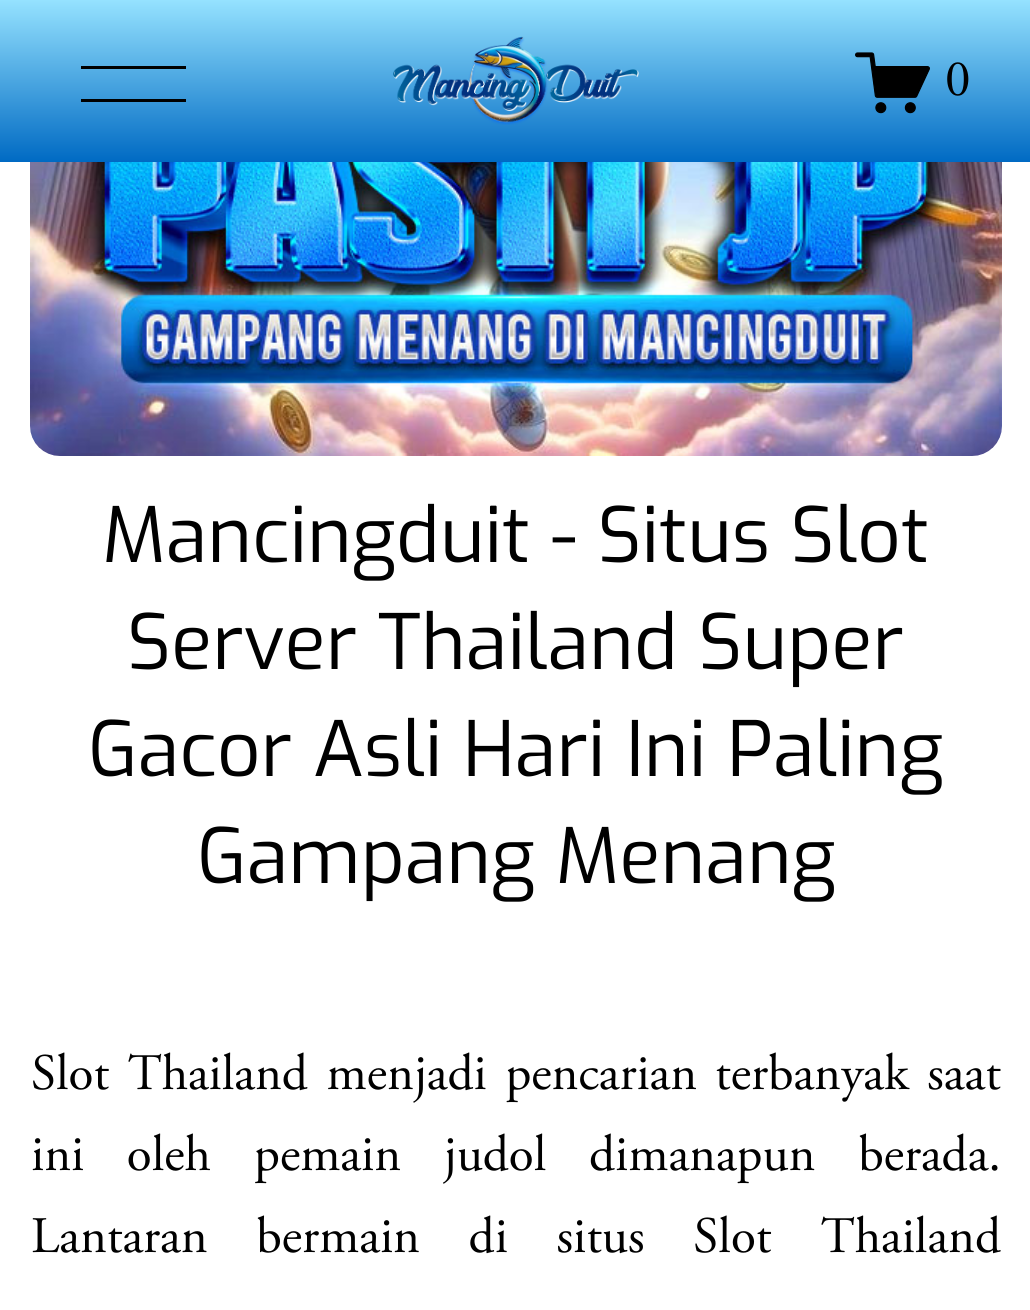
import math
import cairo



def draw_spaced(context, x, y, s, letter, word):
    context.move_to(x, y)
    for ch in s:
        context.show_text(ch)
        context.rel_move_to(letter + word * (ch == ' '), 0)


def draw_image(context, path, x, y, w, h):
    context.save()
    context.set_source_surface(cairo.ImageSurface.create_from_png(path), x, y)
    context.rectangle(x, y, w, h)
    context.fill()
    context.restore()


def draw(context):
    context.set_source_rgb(1, 1, 1)
    context.paint()
    gradient = cairo.LinearGradient(516, 0, 516, 162)
    gradient.add_color_stop_rgba(0, 149 / 255, 226 / 255, 1, 1)
    gradient.add_color_stop_rgba(1, 0, 106 / 255, 195 / 255, 1)
    context.set_source(gradient)
    context.rectangle(0, 0, 1030, 162)
    context.fill()
    context.set_source_rgb(0, 0, 0)
    context.rectangle(81, 66, 105, 3)
    context.fill()
    context.rectangle(81, 99, 105, 3)
    context.fill()
    draw_image(context, "images/1.png", 393, 36, 246, 89)
    draw_image(context, "images/2.png", 855, 52, 75, 62)
    draw_image(context, "images/3.png", 30, 162, 972, 294)
    context.select_font_face("Adobe Garamond")
    context.set_font_size(51.1)
    context.move_to(945, 95)
    context.show_text("0")
    context.select_font_face("Exo")
    context.set_font_size(76.25)
    context.move_to(102, 562)
    context.show_text("Mancingduit - Situs Slot")
    context.move_to(127, 669)
    context.show_text("Server Thailand Super")
    context.move_to(88, 776)
    context.show_text("Gacor Asli Hari Ini Paling")
    context.move_to(197, 883)
    context.show_text("Gampang Menang")
    context.select_font_face("Adobe Garamond")
    context.set_font_size(51.1)
    draw_spaced(context, 31, 1089, "Slot Thailand menjadi pencarian", 0, 6)
    draw_spaced(context, 715, 1089, "terbanyak saat", 0, 6)
    draw_spaced(context, 31, 1170, "ini oleh", 0, 30)
    draw_spaced(context, 254, 1170, "pemain judol dimanapun berada.", 0, 30)
    draw_spaced(context, 31, 1252, "Lantaran bermain di situs Slot", 0, 36)
    context.move_to(821, 1252)
    context.show_text("Thailand")


surface = cairo.ImageSurface(cairo.Format.RGB24, 1030, 1310)
context = cairo.Context(surface)
options = cairo.FontOptions()
options.set_hint_metrics(cairo.HintMetrics.OFF)
options.set_hint_style(cairo.HintStyle.NONE)
context.set_font_options(options)
context.set_miter_limit(4)
draw(context)
surface.write_to_png("out.png")
